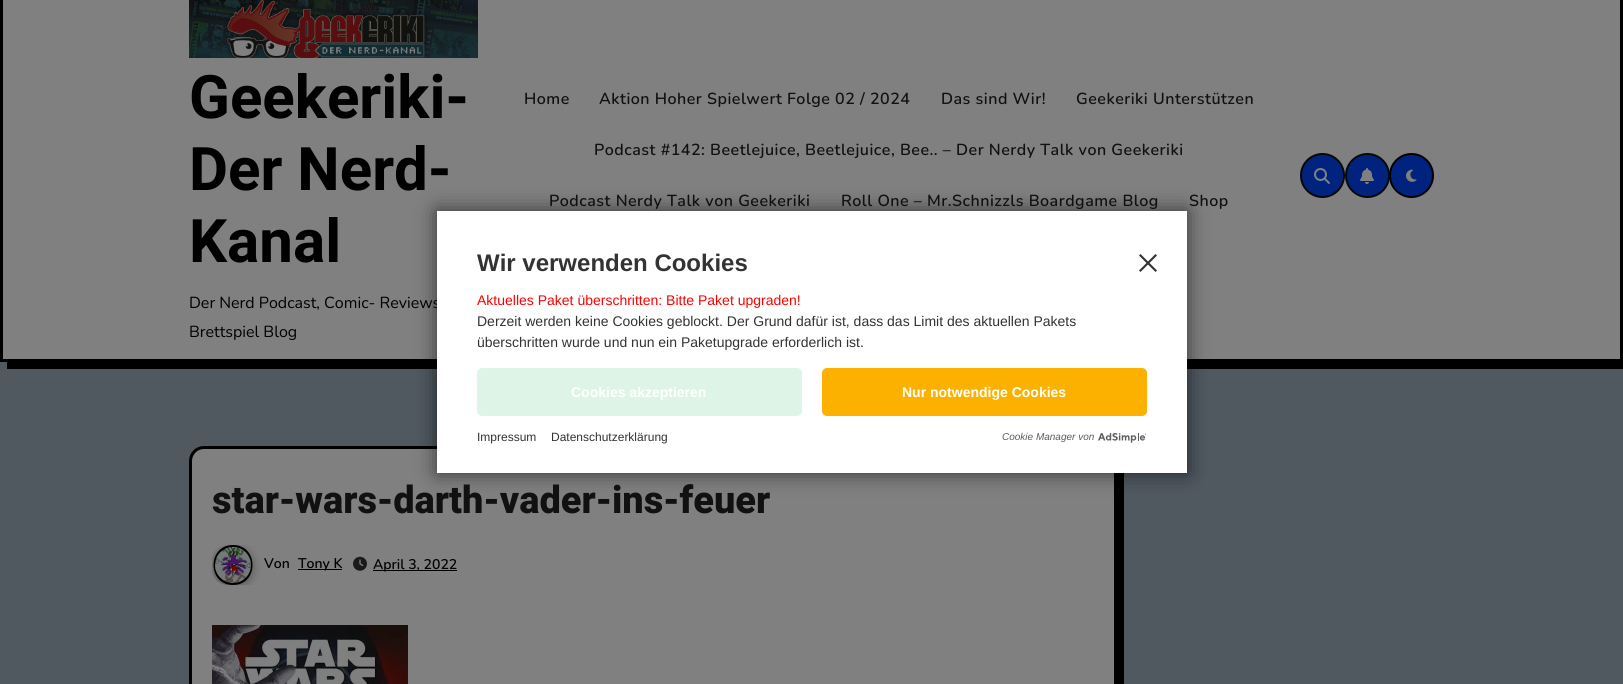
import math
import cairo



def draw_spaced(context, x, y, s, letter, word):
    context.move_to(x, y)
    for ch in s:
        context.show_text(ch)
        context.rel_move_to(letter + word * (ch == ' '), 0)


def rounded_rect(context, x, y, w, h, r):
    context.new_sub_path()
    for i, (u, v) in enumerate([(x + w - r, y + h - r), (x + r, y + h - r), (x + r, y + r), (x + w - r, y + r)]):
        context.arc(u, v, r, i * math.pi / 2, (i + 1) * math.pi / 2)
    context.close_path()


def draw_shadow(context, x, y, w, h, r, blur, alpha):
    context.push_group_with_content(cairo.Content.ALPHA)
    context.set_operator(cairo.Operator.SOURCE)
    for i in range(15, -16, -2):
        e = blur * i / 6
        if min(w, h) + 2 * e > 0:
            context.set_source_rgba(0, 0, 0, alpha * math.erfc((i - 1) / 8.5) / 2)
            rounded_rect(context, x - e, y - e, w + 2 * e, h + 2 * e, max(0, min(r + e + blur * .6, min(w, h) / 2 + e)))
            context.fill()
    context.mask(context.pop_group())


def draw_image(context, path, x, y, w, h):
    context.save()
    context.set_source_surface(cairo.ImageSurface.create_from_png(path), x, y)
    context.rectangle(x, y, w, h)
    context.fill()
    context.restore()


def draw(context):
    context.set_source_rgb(80 / 255, 88 / 255, 96 / 255)
    context.paint()
    context.set_source_rgb(0, 0, 0)
    context.new_path()
    context.move_to(7, 362)
    context.line_to(7, 369)
    context.line_to(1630, 369)
    context.line_to(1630, -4)
    context.line_to(1623, -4)
    context.line_to(1623, 362)
    context.close_path()
    context.fill()
    context.set_source_rgb(128 / 255, 128 / 255, 128 / 255)
    context.rectangle(1.5, -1.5, 1620, 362)
    context.fill_preserve()
    context.set_source_rgb(0, 0, 0)
    context.set_line_width(3)
    context.stroke()
    draw_image(context, "images/1.png", 189, 0, 289, 58)
    context.set_source_rgb(1 / 255, 35 / 255, 128 / 255)
    context.arc(1322.5, 175.5, 21.5, 0, 2 * math.pi)
    context.fill_preserve()
    context.set_source_rgb(8 / 255, 8 / 255, 9 / 255)
    context.set_line_width(2)
    context.stroke()
    draw_image(context, "images/2.png", 1314, 168, 16, 16)
    context.set_source_rgb(1 / 255, 35 / 255, 128 / 255)
    context.arc(1411.5, 175.5, 21.5, 0, 2 * math.pi)
    context.fill_preserve()
    context.set_source_rgb(0, 0, 0)
    context.stroke()
    context.set_source_rgb(1 / 255, 35 / 255, 128 / 255)
    context.arc(1367.5, 175.5, 21.5, 0, 2 * math.pi)
    context.fill_preserve()
    context.set_source_rgb(8 / 255, 8 / 255, 9 / 255)
    context.stroke()
    draw_image(context, "images/3.png", 1360, 168, 14, 16)
    draw_image(context, "images/4.png", 1406, 169, 11, 13)
    context.set_source_rgb(0, 0, 0)
    context.new_path()
    context.move_to(197, 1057)
    context.curve_to(200, 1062, 205, 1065, 211, 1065)
    context.line_to(1109, 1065)
    context.curve_to(1117, 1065, 1124, 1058, 1124, 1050)
    context.line_to(1124, 468)
    context.curve_to(1124, 462, 1121, 457, 1116, 454)
    context.curve_to(1116, 456, 1117, 459, 1117, 461)
    context.line_to(1117, 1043)
    context.curve_to(1117, 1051, 1110, 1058, 1102, 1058)
    context.line_to(204, 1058)
    context.curve_to(202, 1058, 199, 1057, 197, 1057)
    context.close_path()
    context.fill()
    context.set_source_rgb(128 / 255, 128 / 255, 128 / 255)
    rounded_rect(context, 190.5, 447.5, 925, 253, 13.5)
    context.fill_preserve()
    context.set_source_rgb(0, 0, 0)
    context.set_line_width(3)
    context.stroke()
    context.save()
    rounded_rect(context, 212, 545, 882, 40, 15)
    context.clip()
    context.set_source_rgb(17 / 255, 17 / 255, 17 / 255)
    draw_shadow(context, 212, 546, 42, 42, 21, 4, 0.3)
    context.restore()
    context.new_path()
    context.move_to(233, 545)
    context.curve_to(207, 545, 207, 585, 233, 585)
    context.curve_to(259, 585, 259, 545, 233, 545)
    context.close_path()
    context.fill()
    draw_image(context, "images/5.png", 215, 547, 36, 36)
    context.rectangle(298, 569, 44, 1)
    context.fill()
    draw_image(context, "images/6.png", 353, 556, 14, 15)
    context.rectangle(373, 570, 84, 1)
    context.fill()
    draw_image(context, "images/7.png", 212, 625, 196, 59)
    context.set_source_rgb(0, 0, 0)
    draw_shadow(context, 437, 211, 750, 262, 0, 10, 0.6)
    context.select_font_face("Heebo", cairo.FontSlant.NORMAL, cairo.FontWeight.BOLD)
    context.set_font_size(60)
    context.set_source_rgb(0, 0, 0)
    context.move_to(189, 118)
    context.show_text("Geekeriki-")
    context.move_to(189, 190)
    context.show_text("Der Nerd-")
    context.move_to(189, 262)
    context.show_text("Kanal")
    context.select_font_face("Nunito")
    context.set_font_size(16)
    context.move_to(189, 308)
    context.show_text("Der Nerd Podcast, Comic- Reviews")
    context.move_to(189, 337)
    context.show_text("Brettspiel Blog")
    context.select_font_face("Nunito SemiBold")
    context.set_source_rgb(17 / 255, 17 / 255, 17 / 255)
    draw_spaced(context, 524, 104, "Home", 0.5, 0)
    draw_spaced(context, 599, 104, "Aktion Hoher Spielwert Folge 02 / 2024", 0.5, 0)
    draw_spaced(context, 941, 104, "Das sind Wir!", 0.5, 0)
    draw_spaced(context, 1076, 104, "Geekeriki Unterstützen", 0.5, 0)
    draw_spaced(context, 594, 155, "Podcast #142: Beetlejuice, Beetlejuice, Bee.. – Der Nerdy Talk von Geekeriki", 0.5, 0)
    draw_spaced(context, 549, 206, "Podcast Nerdy Talk von Geekeriki", 0.5, 0)
    draw_spaced(context, 841, 206, "Roll One – Mr.Schnizzls Boardgame Blog", 0.5, 0)
    draw_spaced(context, 1189, 206, "Shop", 0.5, 0)
    context.select_font_face("Heebo ExtraBold")
    context.set_font_size(38)
    context.move_to(212, 513)
    context.show_text("star-wars-darth-vader-ins-feuer")
    context.select_font_face("Nunito SemiBold")
    context.set_font_size(14)
    context.set_source_rgb(0, 0, 0)
    context.move_to(264, 568)
    context.show_text("Von")
    context.move_to(298, 568)
    context.show_text("Tony K")
    context.move_to(373, 569)
    context.show_text("April 3, 2022")
    context.set_source_rgb(1, 1, 1)
    context.rectangle(437, 211, 750, 262)
    context.fill()
    context.select_font_face("Liberation Sans", cairo.FontSlant.NORMAL, cairo.FontWeight.BOLD)
    context.set_font_size(24)
    context.set_source_rgb(51 / 255, 51 / 255, 51 / 255)
    context.move_to(477, 271)
    context.show_text("Wir verwenden Cookies")
    context.select_font_face("Liberation Sans")
    context.set_font_size(14)
    context.set_source_rgb(1, 0, 0)
    context.move_to(477, 305)
    context.show_text("Aktuelles Paket überschritten: Bitte Paket upgraden!")
    context.set_source_rgb(51 / 255, 51 / 255, 51 / 255)
    context.move_to(477, 326)
    context.show_text("Derzeit werden keine Cookies geblockt. Der Grund dafür ist, dass das Limit des aktuellen Pakets")
    context.move_to(477, 347)
    context.show_text("überschritten wurde und nun ein Paketupgrade erforderlich ist.")
    context.new_path()
    context.move_to(1140.5, 254)
    context.line_to(1157, 270.5)
    context.line_to(1155.5, 272)
    context.line_to(1139, 255.5)
    context.close_path()
    context.fill()
    context.new_path()
    context.move_to(1139, 270.5)
    context.line_to(1155.5, 254)
    context.line_to(1157, 255.5)
    context.line_to(1140.5, 272)
    context.close_path()
    context.fill()
    context.set_source_rgb(221 / 255, 244 / 255, 231 / 255)
    rounded_rect(context, 478, 369, 323, 46, 4)
    context.fill_preserve()
    context.set_line_width(2)
    context.stroke()
    context.select_font_face("Liberation Sans", cairo.FontSlant.NORMAL, cairo.FontWeight.BOLD)
    context.set_source_rgb(1, 1, 1)
    context.move_to(571, 397)
    context.show_text("Cookies akzeptieren")
    context.set_source_rgb(252 / 255, 177 / 255, 0)
    rounded_rect(context, 823, 369, 323, 46, 4)
    context.fill_preserve()
    context.stroke()
    context.set_source_rgb(1, 1, 1)
    context.move_to(902, 397)
    context.show_text("Nur notwendige Cookies")
    context.select_font_face("Liberation Sans")
    context.set_font_size(12)
    context.set_source_rgb(51 / 255, 51 / 255, 51 / 255)
    context.move_to(477, 441)
    context.show_text("Impressum")
    context.move_to(551, 441)
    context.show_text("Datenschutzerklärung")
    context.select_font_face("Liberation Sans", cairo.FontSlant.ITALIC)
    context.set_font_size(10)
    context.set_source_rgb(92 / 255, 92 / 255, 92 / 255)
    context.move_to(1002, 440)
    context.show_text("Cookie Manager von")
    draw_image(context, "images/8.png", 1098, 433, 48, 10)


surface = cairo.ImageSurface(cairo.Format.RGB24, 1623, 684)
context = cairo.Context(surface)
options = cairo.FontOptions()
options.set_hint_metrics(cairo.HintMetrics.OFF)
options.set_hint_style(cairo.HintStyle.NONE)
context.set_font_options(options)
context.set_miter_limit(4)
draw(context)
surface.write_to_png("out.png")
